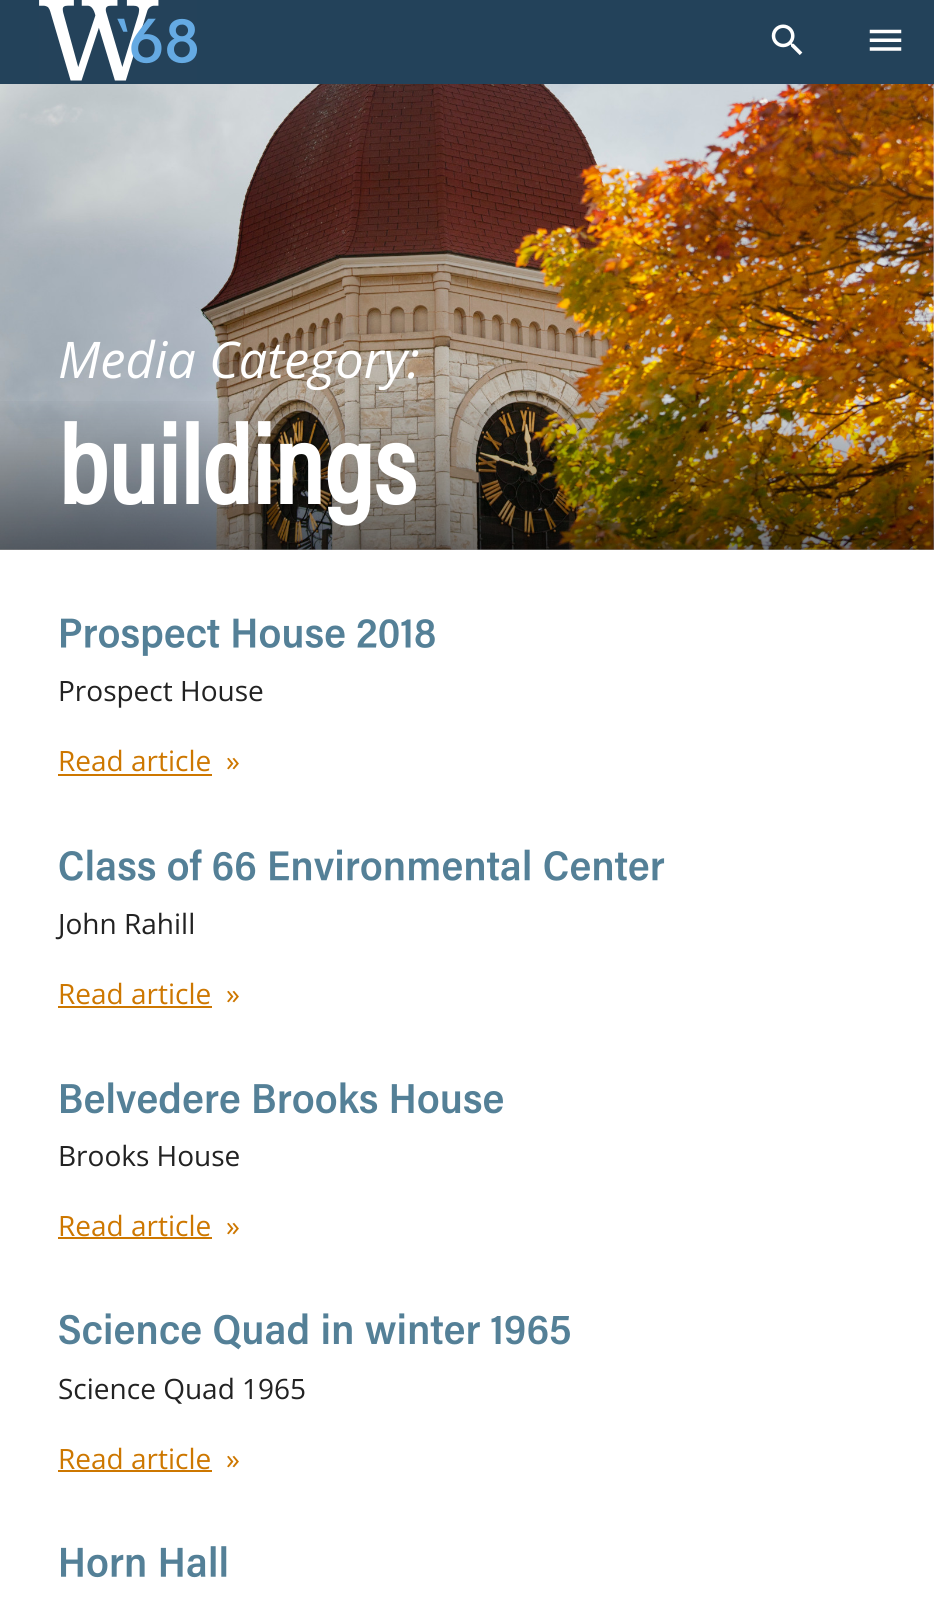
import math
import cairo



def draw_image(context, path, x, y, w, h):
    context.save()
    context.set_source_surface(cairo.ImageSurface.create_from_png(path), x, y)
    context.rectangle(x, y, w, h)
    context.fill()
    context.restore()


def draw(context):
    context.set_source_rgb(1, 1, 1)
    context.paint()
    context.set_source_rgb(35 / 255, 66 / 255, 90 / 255)
    context.rectangle(0, 0, 934, 84)
    context.fill()
    draw_image(context, "images/1.png", 39, 0, 158, 81)
    draw_image(context, "images/2.png", 771, 24, 32, 31)
    draw_image(context, "images/3.png", 869, 29, 33, 22)
    draw_image(context, "images/4.png", 0, 84, 934, 466)
    gradient = cairo.LinearGradient(467, 77, 467, 550)
    gradient.add_color_stop_rgba(0, 0, 0, 0, 0)
    gradient.add_color_stop_rgba(0.67, 0, 0, 0, 0)
    gradient.add_color_stop_rgba(1, 0, 0, 0, 0.45)
    context.set_source(gradient)
    context.rectangle(0, 401, 934, 149)
    context.fill()
    draw_image(context, "images/5.png", 61, 618, 374, 38)
    context.set_source_rgb(205 / 255, 119 / 255, 0)
    context.rectangle(58, 774, 154, 2)
    context.fill()
    draw_image(context, "images/6.png", 59, 849, 606, 32)
    context.rectangle(58, 1006, 154, 2)
    context.fill()
    draw_image(context, "images/7.png", 61, 1082, 442, 32)
    context.rectangle(58, 1237, 154, 2)
    context.fill()
    draw_image(context, "images/8.png", 59, 1313, 511, 37)
    context.rectangle(58, 1470, 154, 2)
    context.fill()
    draw_image(context, "images/9.png", 61, 1546, 166, 32)
    context.select_font_face("Open Sans", cairo.FontSlant.ITALIC)
    context.set_font_size(50.5)
    context.set_source_rgb(1, 1, 1)
    context.move_to(58, 378)
    context.show_text("Media Category:")
    context.select_font_face("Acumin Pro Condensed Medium", cairo.FontSlant.NORMAL, cairo.FontWeight.BOLD)
    context.set_font_size(112)
    context.move_to(58, 504)
    context.show_text("buildings")
    context.select_font_face("Open Sans")
    context.set_font_size(28)
    context.set_source_rgb(34 / 255, 34 / 255, 34 / 255)
    context.move_to(58, 701)
    context.show_text("Prospect House")
    context.set_source_rgb(205 / 255, 119 / 255, 0)
    context.move_to(58, 771)
    context.show_text("Read article")
    context.move_to(226, 771)
    context.show_text("»")
    context.set_source_rgb(34 / 255, 34 / 255, 34 / 255)
    context.move_to(58, 934)
    context.show_text("John Rahill")
    context.set_source_rgb(205 / 255, 119 / 255, 0)
    context.move_to(58, 1004)
    context.show_text("Read article")
    context.move_to(226, 1004)
    context.show_text("»")
    context.set_source_rgb(34 / 255, 34 / 255, 34 / 255)
    context.move_to(58, 1166)
    context.show_text("Brooks House")
    context.set_source_rgb(205 / 255, 119 / 255, 0)
    context.move_to(58, 1236)
    context.show_text("Read article")
    context.move_to(226, 1236)
    context.show_text("»")
    context.set_source_rgb(34 / 255, 34 / 255, 34 / 255)
    context.move_to(58, 1399)
    context.show_text("Science Quad 1965")
    context.set_source_rgb(205 / 255, 119 / 255, 0)
    context.move_to(58, 1469)
    context.show_text("Read article")
    context.move_to(226, 1469)
    context.show_text("»")


surface = cairo.ImageSurface(cairo.Format.RGB24, 934, 1603)
context = cairo.Context(surface)
options = cairo.FontOptions()
options.set_hint_metrics(cairo.HintMetrics.OFF)
options.set_hint_style(cairo.HintStyle.NONE)
context.set_font_options(options)
context.set_miter_limit(4)
draw(context)
surface.write_to_png("out.png")
